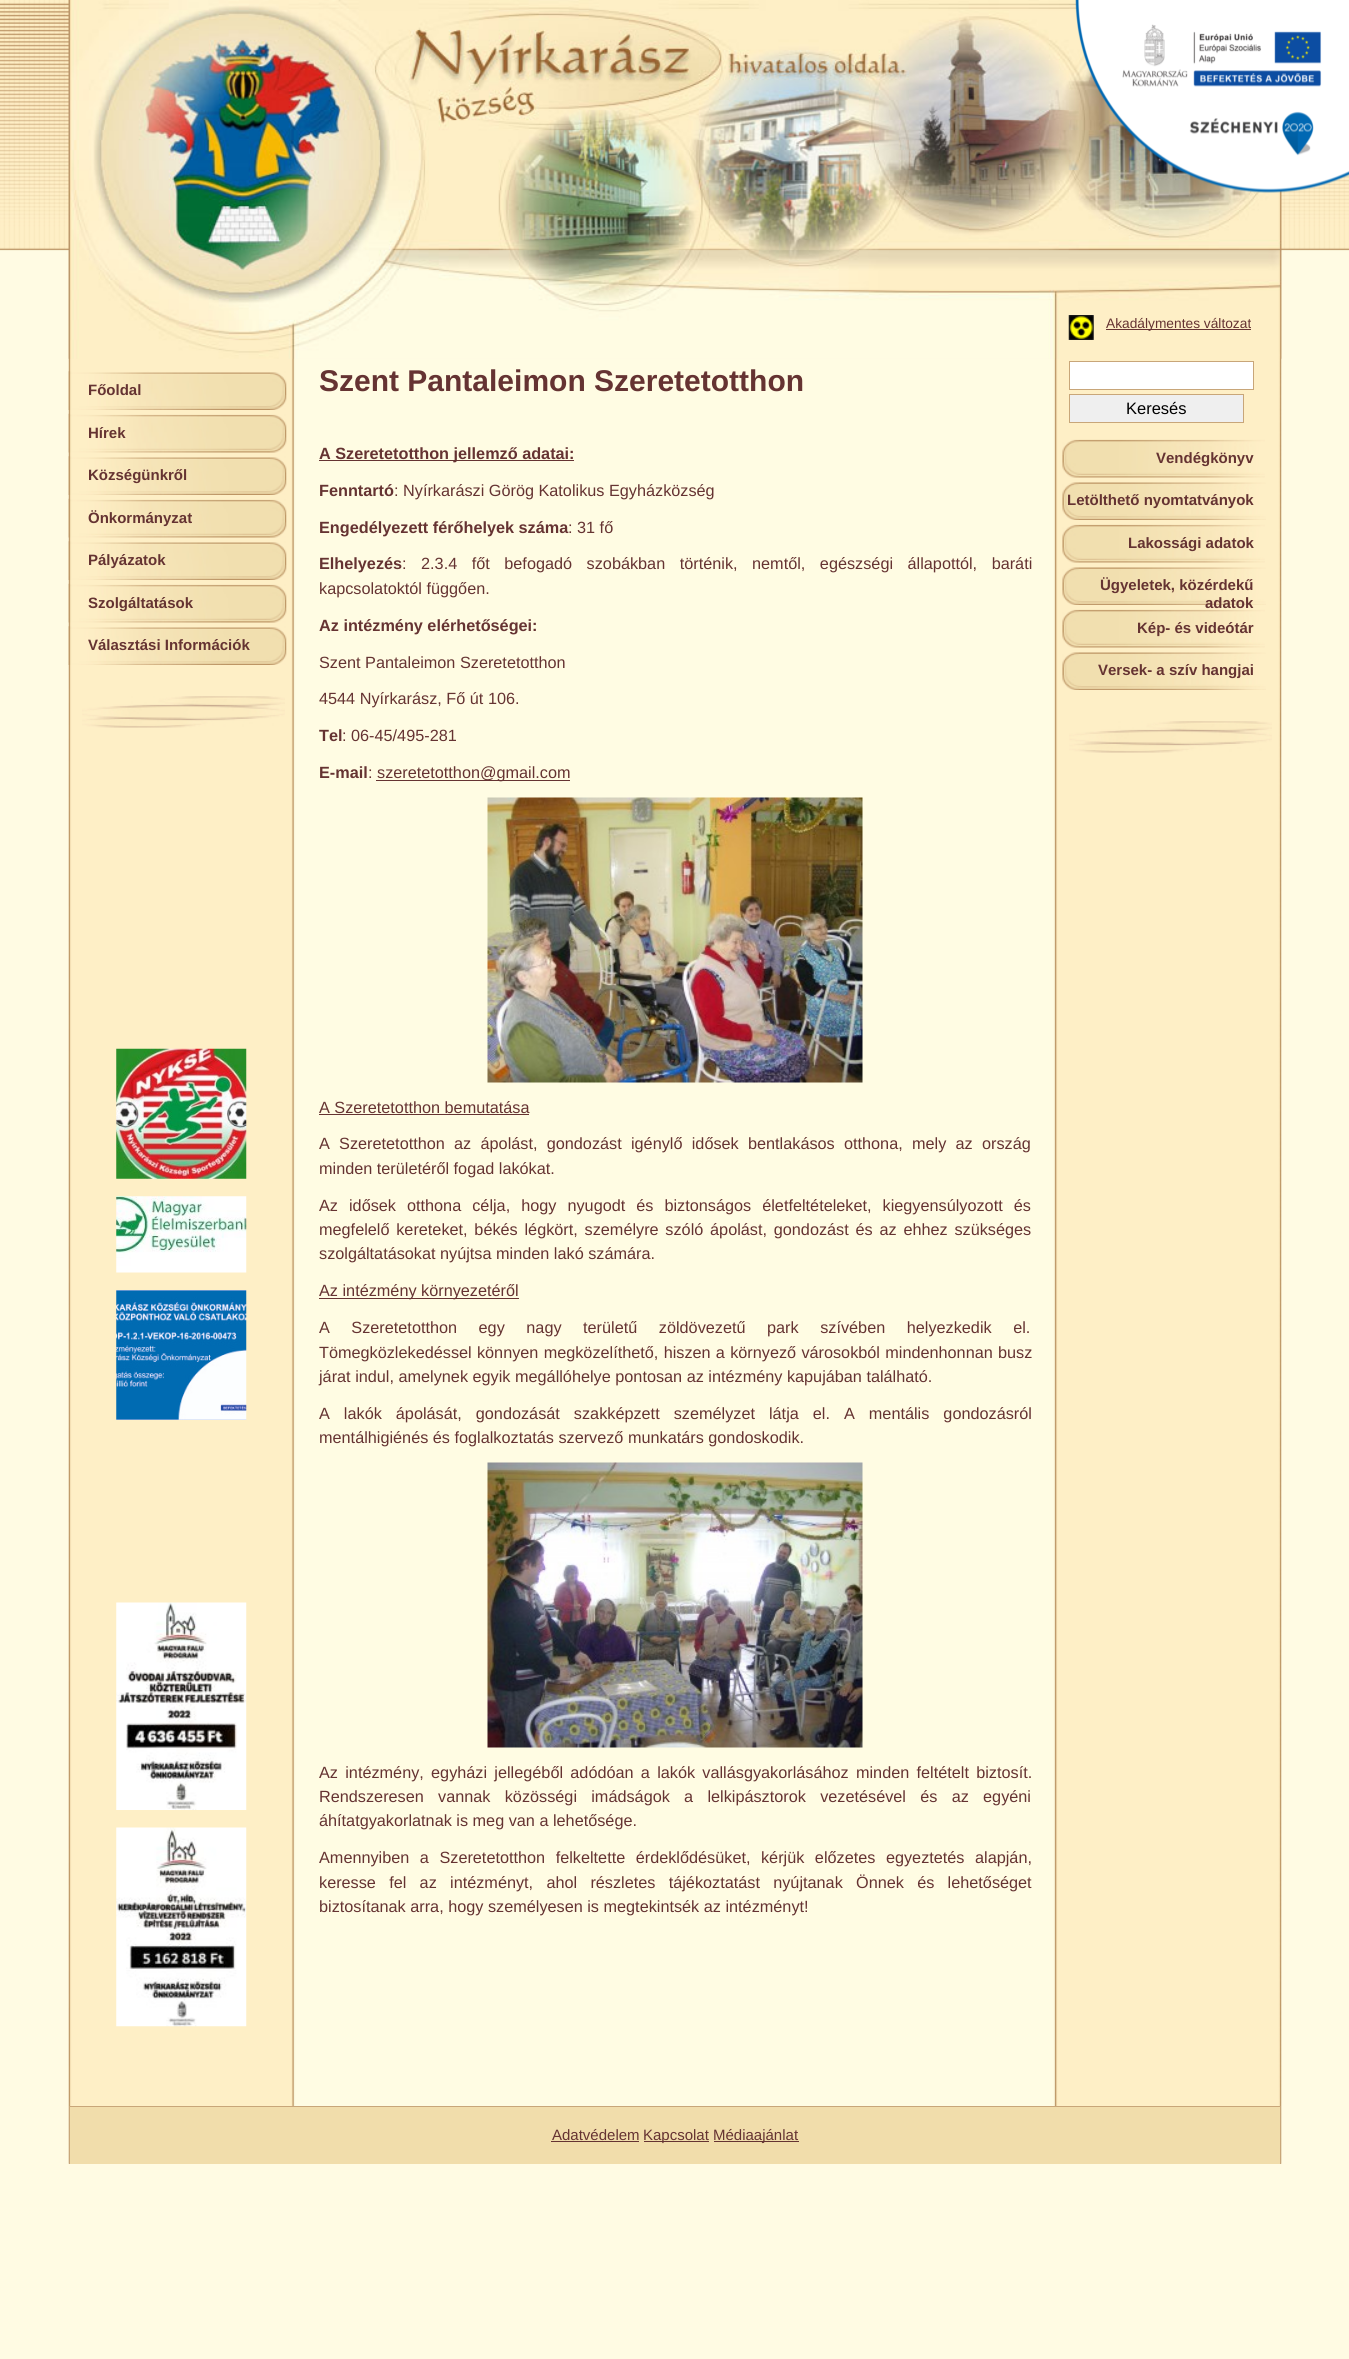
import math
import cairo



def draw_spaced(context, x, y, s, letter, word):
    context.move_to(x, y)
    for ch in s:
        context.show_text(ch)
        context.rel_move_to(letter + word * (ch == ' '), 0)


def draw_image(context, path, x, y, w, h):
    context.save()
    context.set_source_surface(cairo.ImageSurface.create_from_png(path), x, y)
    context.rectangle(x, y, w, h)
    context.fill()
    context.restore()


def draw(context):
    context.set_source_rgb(1, 251 / 255, 227 / 255)
    context.paint()
    draw_image(context, "images/1.png", 0, 0, 1349, 251)
    draw_image(context, "images/2.png", 68, 0, 1214, 2164)
    draw_image(context, "images/3.png", 68, 0, 1214, 359)
    draw_image(context, "images/4.png", 1075, 0, 274, 193)
    draw_image(context, "images/5.png", 68, 371, 219, 39)
    draw_image(context, "images/6.png", 68, 413, 219, 40)
    draw_image(context, "images/7.png", 68, 456, 219, 39)
    draw_image(context, "images/8.png", 68, 498, 219, 40)
    draw_image(context, "images/9.png", 68, 541, 219, 39)
    draw_image(context, "images/10.png", 68, 583, 219, 40)
    draw_image(context, "images/11.png", 68, 626, 219, 39)
    draw_image(context, "images/12.png", 82, 696, 203, 32)
    draw_image(context, "images/13.png", 116, 1048, 131, 131)
    draw_image(context, "images/14.png", 116, 1196, 131, 77)
    draw_image(context, "images/15.png", 116, 1290, 131, 130)
    draw_image(context, "images/16.png", 116, 1602, 131, 208)
    draw_image(context, "images/17.png", 116, 1827, 131, 200)
    context.set_source_rgb(101 / 255, 51 / 255, 50 / 255)
    context.rectangle(319, 460, 255, 1)
    context.fill()
    context.rectangle(376, 780, 194, 1)
    context.fill()
    draw_image(context, "images/18.png", 487, 797, 376, 286)
    context.rectangle(319, 1114, 210, 1)
    context.fill()
    context.rectangle(319, 1298, 200, 1)
    context.fill()
    draw_image(context, "images/19.png", 487, 1462, 376, 286)
    draw_image(context, "images/20.png", 1068, 315, 26, 25)
    context.rectangle(1106, 329, 145, 1)
    context.fill()
    context.set_source_rgb(1, 1, 1)
    context.rectangle(1069.5, 361.5, 184, 28)
    context.fill_preserve()
    context.set_source_rgb(200 / 255, 166 / 255, 121 / 255)
    context.set_line_width(1)
    context.stroke()
    context.set_source_rgb(239 / 255, 239 / 255, 239 / 255)
    context.rectangle(1069.5, 394.5, 174, 28)
    context.fill_preserve()
    context.set_source_rgb(200 / 255, 166 / 255, 121 / 255)
    context.stroke()
    draw_image(context, "images/21.png", 1062, 439, 203, 39)
    draw_image(context, "images/22.png", 1062, 482, 204, 38)
    draw_image(context, "images/21.png", 1062, 524, 203, 39)
    draw_image(context, "images/23.png", 1062, 567, 204, 38)
    draw_image(context, "images/22.png", 1062, 652, 204, 38)
    draw_image(context, "images/25.png", 1069, 721, 203, 32)
    context.set_source_rgb(241 / 255, 221 / 255, 171 / 255)
    context.rectangle(70, 2107, 1210, 57)
    context.fill()
    context.set_source_rgb(200 / 255, 166 / 255, 121 / 255)
    context.rectangle(69, 2106, 1212, 1)
    context.fill()
    context.rectangle(1280, 2106, 1, 58)
    context.fill()
    context.rectangle(69, 2106, 1, 58)
    context.fill()
    context.set_source_rgb(101 / 255, 51 / 255, 50 / 255)
    context.rectangle(551, 2141, 88, 1)
    context.fill()
    context.rectangle(644, 2141, 65, 1)
    context.fill()
    context.rectangle(714, 2141, 85, 1)
    context.fill()
    context.select_font_face("Liberation Sans", cairo.FontSlant.NORMAL, cairo.FontWeight.BOLD)
    context.set_font_size(15)
    context.move_to(88, 395)
    context.show_text("Főoldal")
    context.move_to(88, 438)
    context.show_text("Hírek")
    context.move_to(88, 480)
    context.show_text("Községünkről")
    context.move_to(88, 523)
    context.show_text("Önkormányzat")
    context.move_to(88, 565)
    context.show_text("Pályázatok")
    context.move_to(88, 608)
    context.show_text("Szolgáltatások")
    context.move_to(88, 650)
    context.show_text("Választási Információk")
    context.set_font_size(30)
    context.move_to(319, 391)
    context.show_text("Szent Pantaleimon Szeretetotthon")
    context.set_font_size(16.25)
    context.move_to(319, 459)
    context.show_text("A Szeretetotthon jellemző adatai:")
    context.move_to(319, 496)
    context.show_text("Fenntartó")
    context.select_font_face("Liberation Sans")
    context.move_to(394, 496)
    context.show_text(": Nyírkarászi Görög Katolikus Egyházközség")
    context.select_font_face("Liberation Sans", cairo.FontSlant.NORMAL, cairo.FontWeight.BOLD)
    context.move_to(319, 533)
    context.show_text("Engedélyezett férőhelyek száma")
    context.select_font_face("Liberation Sans")
    context.move_to(568, 533)
    context.show_text(": 31 fő")
    context.select_font_face("Liberation Sans", cairo.FontSlant.NORMAL, cairo.FontWeight.BOLD)
    context.move_to(319, 569)
    context.show_text("Elhelyezés")
    context.select_font_face("Liberation Sans")
    draw_spaced(context, 402, 569, ": 2.3.4 főt befogadó szobákban történik, nemtől, egészségi állapottól, baráti", 0, 10)
    context.move_to(319, 594)
    context.show_text("kapcsolatoktól függően.")
    context.select_font_face("Liberation Sans", cairo.FontSlant.NORMAL, cairo.FontWeight.BOLD)
    context.move_to(319, 631)
    context.show_text("Az intézmény elérhetőségei:")
    context.select_font_face("Liberation Sans")
    context.move_to(319, 668)
    context.show_text("Szent Pantaleimon Szeretetotthon")
    context.move_to(319, 704)
    context.show_text("4544 Nyírkarász, Fő út 106.")
    context.select_font_face("Liberation Sans", cairo.FontSlant.NORMAL, cairo.FontWeight.BOLD)
    context.move_to(319, 741)
    context.show_text("Tel")
    context.select_font_face("Liberation Sans")
    context.move_to(342, 741)
    context.show_text(": 06-45/495-281")
    context.select_font_face("Liberation Sans", cairo.FontSlant.NORMAL, cairo.FontWeight.BOLD)
    context.move_to(319, 778)
    context.show_text("E-mail")
    context.select_font_face("Liberation Sans")
    context.move_to(368, 778)
    context.show_text(":")
    context.move_to(377, 778)
    context.show_text("szeretetotthon@gmail.com")
    context.move_to(319, 1113)
    context.show_text("A Szeretetotthon bemutatása")
    draw_spaced(context, 319, 1149, "A Szeretetotthon az ápolást, gondozást igénylő idősek bentlakásos otthona, mely az ország", 0, 4.75)
    context.move_to(319, 1174)
    context.show_text("minden területéről fogad lakókat.")
    draw_spaced(context, 319, 1211, "Az idősek otthona célja, hogy nyugodt és biztonságos életfeltételeket, kiegyensúlyozott és", 0, 6.5)
    draw_spaced(context, 319, 1235, "megfelelő kereteket, békés légkört, személyre szóló ápolást, gondozást és az ehhez szükséges", 0, 2.25)
    context.move_to(319, 1259)
    context.show_text("szolgáltatásokat nyújtsa minden lakó számára.")
    context.move_to(319, 1296)
    context.show_text("Az intézmény környezetéről")
    draw_spaced(context, 319, 1333, "A Szeretetotthon egy nagy területű zöldövezetű park szívében helyezkedik el.", 0, 17)
    draw_spaced(context, 319, 1358, "Tömegközlekedéssel könnyen megközelíthető, hiszen a környező városokból mindenhonnan busz", 0, 0.75)
    context.move_to(319, 1382)
    context.show_text("járat indul, amelynek egyik megállóhelye pontosan az intézmény kapujában található.")
    draw_spaced(context, 319, 1419, "A lakók ápolását, gondozását szakképzett személyzet látja el. A mentális gondozásról", 0, 9.5)
    context.move_to(319, 1443)
    context.show_text("mentálhigiénés és foglalkoztatás szervező munkatárs gondoskodik.")
    draw_spaced(context, 319, 1778, "Az intézmény, egyházi jellegéből adódóan a lakók vallásgyakorlásához minden feltételt biztosít.", 0, 2.75)
    draw_spaced(context, 319, 1802, "Rendszeresen vannak közösségi imádságok a lelkipásztorok vezetésével és az egyéni", 0, 9.75)
    context.move_to(319, 1826)
    context.show_text("áhítatgyakorlatnak is meg van a lehetősége.")
    draw_spaced(context, 319, 1863, "Amennyiben a Szeretetotthon felkeltette érdeklődésüket, kérjük előzetes egyeztetés alapján,", 0, 6)
    draw_spaced(context, 319, 1888, "keresse fel az intézményt, ahol részletes tájékoztatást nyújtanak Önnek és lehetőséget", 0, 8.75)
    context.move_to(319, 1912)
    context.show_text("biztosítanak arra, hogy személyesen is megtekintsék az intézményt!")
    context.set_font_size(13.75)
    context.move_to(1106, 328)
    context.show_text("Akadálymentes változat")
    context.set_font_size(16.5)
    context.set_source_rgb(0, 0, 0)
    context.move_to(1126, 414)
    context.show_text("Keresés")
    context.select_font_face("Liberation Sans", cairo.FontSlant.NORMAL, cairo.FontWeight.BOLD)
    context.set_font_size(15)
    context.set_source_rgb(101 / 255, 51 / 255, 50 / 255)
    context.move_to(1156, 463)
    context.show_text("Vendégkönyv")
    context.move_to(1067, 505)
    context.show_text("Letölthető nyomtatványok")
    context.move_to(1128, 548)
    context.show_text("Lakossági adatok")
    context.move_to(1100, 590)
    context.show_text("Ügyeletek, közérdekű")
    context.move_to(1205, 608)
    context.show_text("adatok")
    draw_image(context, "images/24.png", 1062, 608, 203, 40)
    context.move_to(1137, 633)
    context.show_text("Kép- és videótár")
    context.move_to(1098, 675)
    context.show_text("Versek- a szív hangjai")
    context.select_font_face("Liberation Sans")
    context.move_to(552, 2140)
    context.show_text("Adatvédelem")
    context.move_to(643, 2140)
    context.show_text("Kapcsolat")
    context.move_to(713, 2140)
    context.show_text("Médiaajánlat")


surface = cairo.ImageSurface(cairo.Format.RGB24, 1349, 2359)
context = cairo.Context(surface)
options = cairo.FontOptions()
options.set_hint_metrics(cairo.HintMetrics.OFF)
options.set_hint_style(cairo.HintStyle.NONE)
context.set_font_options(options)
context.set_miter_limit(4)
draw(context)
surface.write_to_png("out.png")
